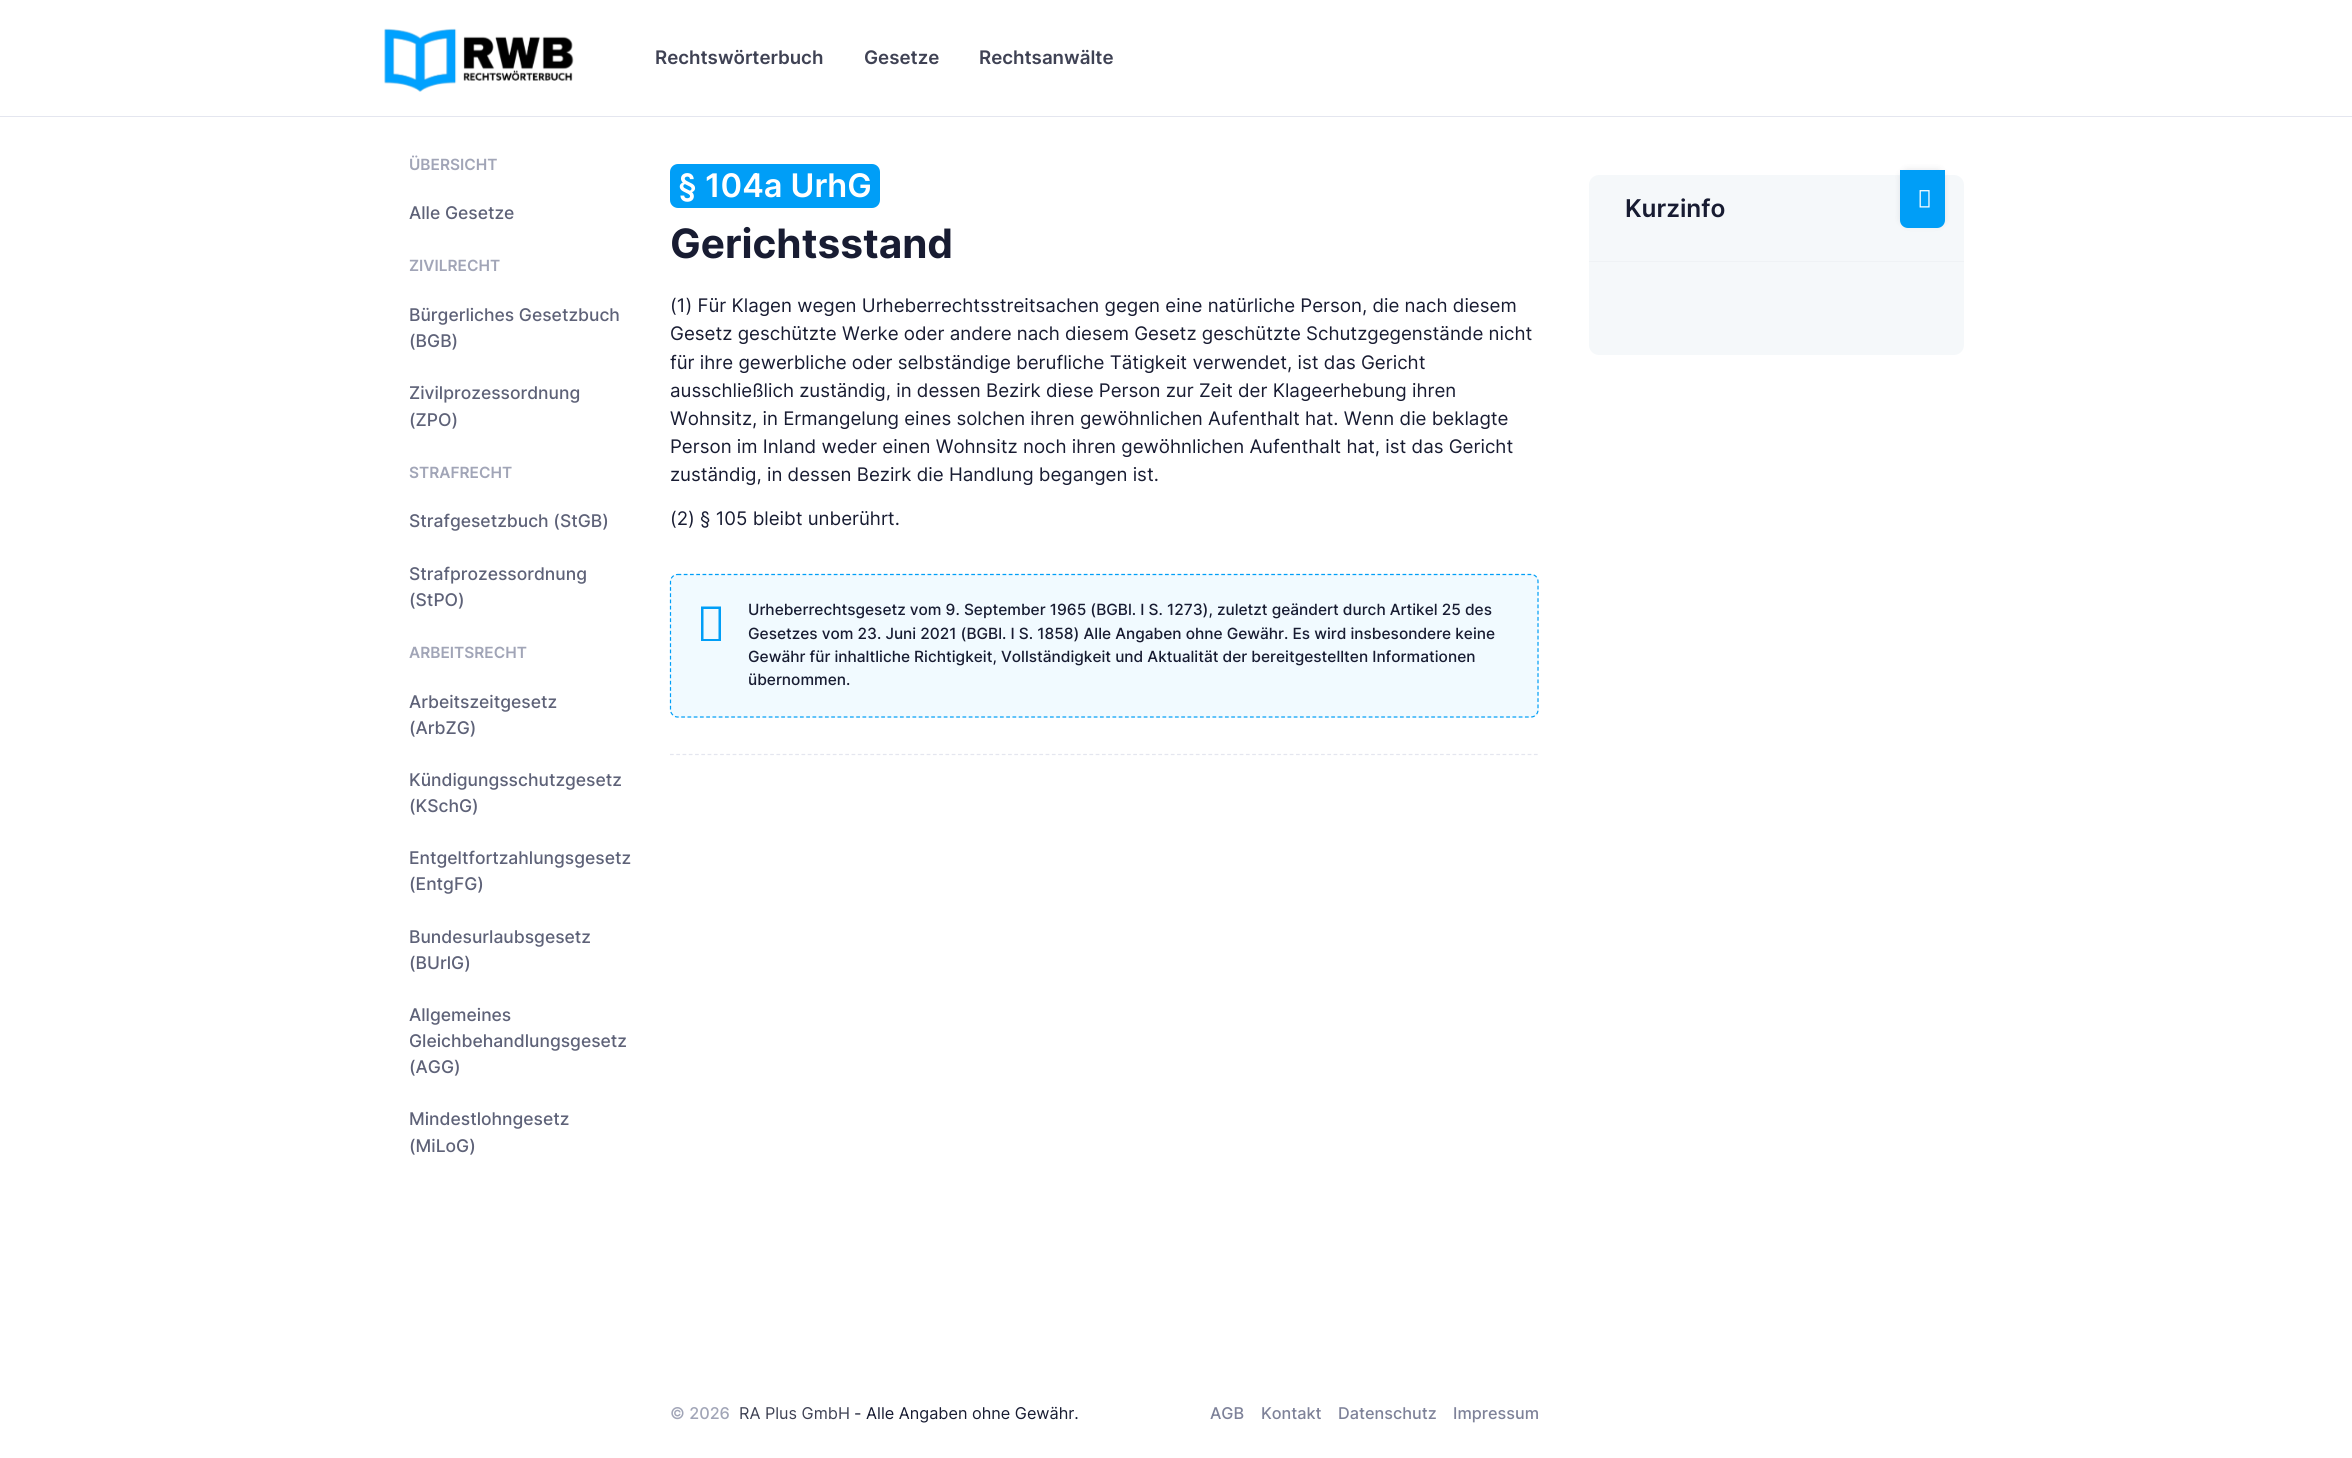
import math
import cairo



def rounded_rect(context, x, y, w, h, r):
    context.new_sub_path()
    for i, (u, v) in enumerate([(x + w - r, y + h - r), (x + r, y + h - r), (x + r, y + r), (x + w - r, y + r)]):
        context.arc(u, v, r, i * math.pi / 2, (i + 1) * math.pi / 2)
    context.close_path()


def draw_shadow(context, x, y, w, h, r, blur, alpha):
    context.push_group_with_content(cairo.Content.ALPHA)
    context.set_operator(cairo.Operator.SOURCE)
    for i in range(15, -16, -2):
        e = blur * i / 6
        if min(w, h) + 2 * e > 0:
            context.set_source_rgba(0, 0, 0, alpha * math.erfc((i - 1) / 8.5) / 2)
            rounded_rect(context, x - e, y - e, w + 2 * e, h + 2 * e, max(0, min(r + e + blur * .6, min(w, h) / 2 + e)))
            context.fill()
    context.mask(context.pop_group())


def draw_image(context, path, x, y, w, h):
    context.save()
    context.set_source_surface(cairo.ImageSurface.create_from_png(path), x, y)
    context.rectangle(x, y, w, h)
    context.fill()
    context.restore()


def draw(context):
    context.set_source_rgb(1, 1, 1)
    context.paint()
    context.set_source_rgb(228 / 255, 230 / 255, 239 / 255)
    context.rectangle(0, 116, 2352, 1)
    context.fill()
    draw_image(context, "images/1.png", 384, 28, 190, 64)
    context.set_source_rgb(0, 158 / 255, 247 / 255)
    rounded_rect(context, 670, 164, 210, 44, 8)
    context.fill()
    context.set_source_rgb(241 / 255, 250 / 255, 1)
    rounded_rect(context, 670, 574, 869, 144, 8)
    context.fill()
    context.new_path()
    context.move_to(677.5, 574.5)
    context.line_to(1531, 574.5)
    context.curve_to(1535, 574.5, 1538, 577.5, 1538, 581.5)
    context.line_to(1538, 710)
    context.curve_to(1538, 713.5, 1535, 717, 1531, 717)
    context.line_to(677.5, 717)
    context.curve_to(674, 717, 670.5, 713.5, 670.5, 710)
    context.line_to(670.5, 581.5)
    context.curve_to(670.5, 577.5, 674, 574.5, 677.5, 574.5)
    context.close_path()
    context.set_source_rgb(0, 158 / 255, 247 / 255)
    context.set_line_width(1.2)
    context.set_dash([3.75, 2.5])
    context.stroke()
    context.new_path()
    context.move_to(701, 641)
    context.line_to(701, 606.5)
    context.line_to(721, 606.5)
    context.line_to(721, 641)
    context.close_path()
    context.move_to(703.5, 639)
    context.line_to(718.5, 639)
    context.line_to(718.5, 609)
    context.line_to(703.5, 609)
    context.close_path()
    context.fill()
    context.new_path()
    context.move_to(670, 754.5)
    context.line_to(1539, 754.5)
    context.set_source_rgb(228 / 255, 230 / 255, 239 / 255)
    context.set_dash([3.75, 2.51])
    context.stroke()
    context.set_source_rgb(245 / 255, 248 / 255, 250 / 255)
    rounded_rect(context, 1589, 175, 375, 180, 10)
    context.fill()
    context.set_source_rgb(239 / 255, 242 / 255, 245 / 255)
    context.rectangle(1589, 261, 375, 1)
    context.fill()
    context.set_source_rgb(24 / 255, 28 / 255, 50 / 255)
    draw_shadow(context, 1900, 169, 45, 57, 8, 3, 0.1)
    context.set_source_rgb(0, 158 / 255, 247 / 255)
    context.new_path()
    context.move_to(1900, 170)
    context.line_to(1945, 170)
    context.line_to(1945, 220)
    context.curve_to(1945, 224.5, 1941.5, 228, 1937, 228)
    context.line_to(1908, 228)
    context.curve_to(1903.5, 228, 1900, 224.5, 1900, 220)
    context.close_path()
    context.fill()
    draw_image(context, "images/2.png", 1919, 190, 11, 18)
    context.select_font_face("Inter SemiBold")
    context.set_font_size(18.7)
    context.set_source_rgb(63 / 255, 66 / 255, 84 / 255)
    context.move_to(655, 64)
    context.show_text("Rechtswörterbuch")
    context.move_to(864, 64)
    context.show_text("Gesetze")
    context.move_to(979, 64)
    context.show_text("Rechtsanwälte")
    context.set_font_size(15.45)
    context.set_source_rgb(161 / 255, 165 / 255, 183 / 255)
    context.move_to(409, 170)
    context.show_text("ÜBERSICHT")
    context.select_font_face("Inter Medium")
    context.set_font_size(17.5)
    context.set_source_rgb(94 / 255, 98 / 255, 120 / 255)
    context.move_to(409, 219)
    context.show_text("Alle Gesetze")
    context.select_font_face("Inter SemiBold")
    context.set_font_size(15.45)
    context.set_source_rgb(161 / 255, 165 / 255, 183 / 255)
    context.move_to(409, 271)
    context.show_text("ZIVILRECHT")
    context.select_font_face("Inter Medium")
    context.set_font_size(17.5)
    context.set_source_rgb(94 / 255, 98 / 255, 120 / 255)
    context.move_to(409, 321)
    context.show_text("Bürgerliches Gesetzbuch")
    context.move_to(409, 347)
    context.show_text("(BGB)")
    context.move_to(409, 399)
    context.show_text("Zivilprozessordnung")
    context.move_to(409, 426)
    context.show_text("(ZPO)")
    context.select_font_face("Inter SemiBold")
    context.set_font_size(15.45)
    context.set_source_rgb(161 / 255, 165 / 255, 183 / 255)
    context.move_to(409, 478)
    context.show_text("STRAFRECHT")
    context.select_font_face("Inter Medium")
    context.set_font_size(17.5)
    context.set_source_rgb(94 / 255, 98 / 255, 120 / 255)
    context.move_to(409, 527)
    context.show_text("Strafgesetzbuch (StGB)")
    context.move_to(409, 580)
    context.show_text("Strafprozessordnung")
    context.move_to(409, 606)
    context.show_text("(StPO)")
    context.select_font_face("Inter SemiBold")
    context.set_font_size(15.45)
    context.set_source_rgb(161 / 255, 165 / 255, 183 / 255)
    context.move_to(409, 658)
    context.show_text("ARBEITSRECHT")
    context.select_font_face("Inter Medium")
    context.set_font_size(17.5)
    context.set_source_rgb(94 / 255, 98 / 255, 120 / 255)
    context.move_to(409, 708)
    context.show_text("Arbeitszeitgesetz")
    context.move_to(409, 734)
    context.show_text("(ArbZG)")
    context.move_to(409, 786)
    context.show_text("Kündigungsschutzgesetz")
    context.move_to(409, 812)
    context.show_text("(KSchG)")
    context.move_to(409, 864)
    context.show_text("Entgeltfortzahlungsgesetz")
    context.move_to(409, 890)
    context.show_text("(EntgFG)")
    context.move_to(409, 943)
    context.show_text("Bundesurlaubsgesetz")
    context.move_to(409, 969)
    context.show_text("(BUrlG)")
    context.move_to(409, 1021)
    context.show_text("Allgemeines")
    context.move_to(409, 1047)
    context.show_text("Gleichbehandlungsgesetz")
    context.move_to(409, 1073)
    context.show_text("(AGG)")
    context.move_to(409, 1125)
    context.show_text("Mindestlohngesetz")
    context.move_to(409, 1152)
    context.show_text("(MiLoG)")
    context.select_font_face("Inter SemiBold")
    context.set_font_size(32.5)
    context.set_source_rgb(1, 1, 1)
    context.move_to(678, 197)
    context.show_text("§ 104a UrhG")
    context.select_font_face("Inter", cairo.FontSlant.NORMAL, cairo.FontWeight.BOLD)
    context.set_font_size(40.5)
    context.set_source_rgb(24 / 255, 28 / 255, 50 / 255)
    context.move_to(670, 258)
    context.show_text("Gerichtsstand")
    context.select_font_face("Inter")
    context.set_font_size(18.7)
    context.move_to(670, 312)
    context.show_text("(1) Für Klagen wegen Urheberrechtsstreitsachen gegen eine natürliche Person, die nach diesem")
    context.move_to(670, 340)
    context.show_text("Gesetz geschützte Werke oder andere nach diesem Gesetz geschützte Schutzgegenstände nicht")
    context.move_to(670, 369)
    context.show_text("für ihre gewerbliche oder selbständige berufliche Tätigkeit verwendet, ist das Gericht")
    context.move_to(670, 397)
    context.show_text("ausschließlich zuständig, in dessen Bezirk diese Person zur Zeit der Klageerhebung ihren")
    context.move_to(670, 425)
    context.show_text("Wohnsitz, in Ermangelung eines solchen ihren gewöhnlichen Aufenthalt hat. Wenn die beklagte")
    context.move_to(670, 453)
    context.show_text("Person im Inland weder einen Wohnsitz noch ihren gewöhnlichen Aufenthalt hat, ist das Gericht")
    context.move_to(670, 481)
    context.show_text("zuständig, in dessen Bezirk die Handlung begangen ist.")
    context.move_to(670, 525)
    context.show_text("(2) § 105 bleibt unberührt.")
    context.select_font_face("Inter Medium")
    context.set_font_size(15.45)
    context.move_to(748, 615)
    context.show_text("Urheberrechtsgesetz vom 9. September 1965 (BGBl. I S. 1273), zuletzt geändert durch Artikel 25 des")
    context.move_to(748, 639)
    context.show_text("Gesetzes vom 23. Juni 2021 (BGBl. I S. 1858) Alle Angaben ohne Gewähr. Es wird insbesondere keine")
    context.move_to(748, 662)
    context.show_text("Gewähr für inhaltliche Richtigkeit, Vollständigkeit und Aktualität der bereitgestellten Informationen")
    context.move_to(748, 685)
    context.show_text("übernommen.")
    context.set_font_size(16.25)
    context.set_source_rgb(161 / 255, 165 / 255, 183 / 255)
    context.move_to(670, 1419)
    context.show_text("© 2026")
    context.select_font_face("Inter")
    context.set_source_rgb(63 / 255, 66 / 255, 84 / 255)
    context.move_to(739, 1419)
    context.show_text("RA Plus GmbH")
    context.set_source_rgb(24 / 255, 28 / 255, 50 / 255)
    context.move_to(854, 1419)
    context.show_text("- Alle Angaben ohne Gewähr.")
    context.select_font_face("Inter Medium")
    context.set_source_rgb(126 / 255, 130 / 255, 153 / 255)
    context.move_to(1210, 1419)
    context.show_text("AGB")
    context.move_to(1261, 1419)
    context.show_text("Kontakt")
    context.move_to(1338, 1419)
    context.show_text("Datenschutz")
    context.move_to(1453, 1419)
    context.show_text("Impressum")
    context.select_font_face("Inter SemiBold")
    context.set_font_size(24.5)
    context.set_source_rgb(24 / 255, 28 / 255, 50 / 255)
    context.move_to(1625, 217)
    context.show_text("Kurzinfo")


surface = cairo.ImageSurface(cairo.Format.RGB24, 2352, 1458)
context = cairo.Context(surface)
options = cairo.FontOptions()
options.set_hint_metrics(cairo.HintMetrics.OFF)
options.set_hint_style(cairo.HintStyle.NONE)
context.set_font_options(options)
context.set_miter_limit(4)
draw(context)
surface.write_to_png("out.png")
